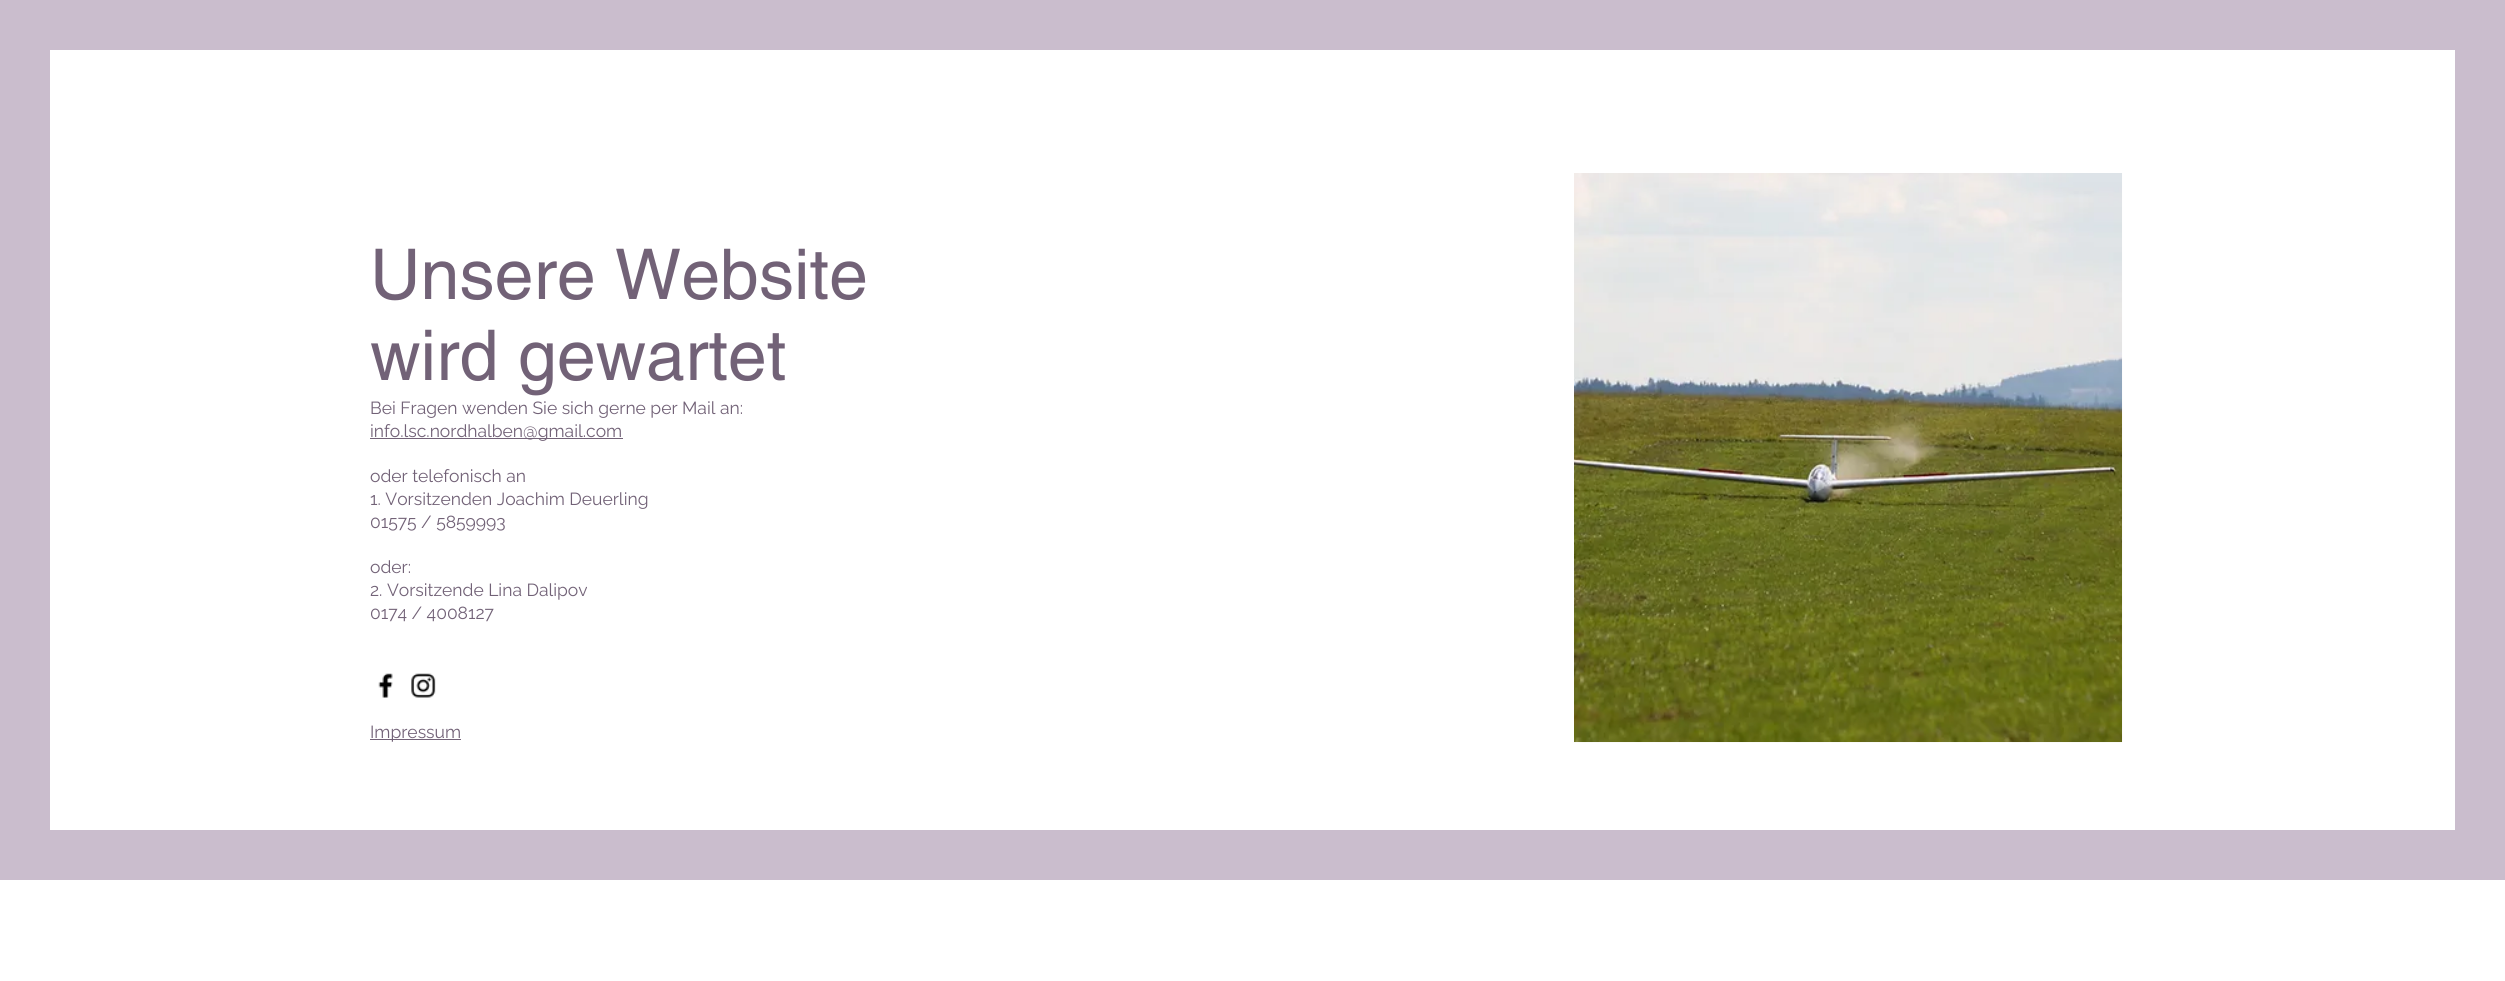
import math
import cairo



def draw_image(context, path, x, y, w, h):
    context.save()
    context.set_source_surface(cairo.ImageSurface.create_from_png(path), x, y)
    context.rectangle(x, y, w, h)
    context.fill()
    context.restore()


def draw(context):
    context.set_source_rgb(1, 1, 1)
    context.paint()
    context.set_source_rgb(202 / 255, 189 / 255, 205 / 255)
    context.rectangle(0, 0, 2505, 880)
    context.fill()
    context.set_source_rgb(1, 1, 1)
    context.rectangle(50, 50, 2405, 780)
    context.fill()
    context.set_source_rgb(114 / 255, 98 / 255, 119 / 255)
    context.rectangle(370, 438, 253, 1)
    context.fill()
    draw_image(context, "images/1.png", 378, 673, 15, 25)
    draw_image(context, "images/2.png", 411, 673, 25, 25)
    context.rectangle(370, 739, 91, 1)
    context.fill()
    draw_image(context, "images/3.png", 1574, 173, 549, 570)
    context.select_font_face("helvetica")
    context.set_font_size(70)
    context.move_to(370, 299)
    context.show_text("Unsere Website")
    context.move_to(370, 380)
    context.show_text("wird gewartet")
    context.select_font_face("Raleway")
    context.set_font_size(17.5)
    context.move_to(370, 414)
    context.show_text("Bei Fragen wenden Sie sich gerne per Mail an:")
    context.move_to(370, 437)
    context.show_text("info.lsc.nordhalben@gmail.com")
    context.move_to(370, 482)
    context.show_text("oder telefonisch an")
    context.move_to(370, 505)
    context.show_text("1. Vorsitzenden Joachim Deuerling")
    context.move_to(370, 528)
    context.show_text("01575 / 5859993")
    context.move_to(370, 573)
    context.show_text("oder:")
    context.move_to(370, 596)
    context.show_text("2. Vorsitzende Lina Dalipov")
    context.move_to(370, 619)
    context.show_text("0174 / 4008127")
    context.move_to(370, 738)
    context.show_text("Impressum")


surface = cairo.ImageSurface(cairo.Format.RGB24, 2505, 981)
context = cairo.Context(surface)
options = cairo.FontOptions()
options.set_hint_metrics(cairo.HintMetrics.OFF)
options.set_hint_style(cairo.HintStyle.NONE)
context.set_font_options(options)
context.set_miter_limit(4)
draw(context)
surface.write_to_png("out.png")
